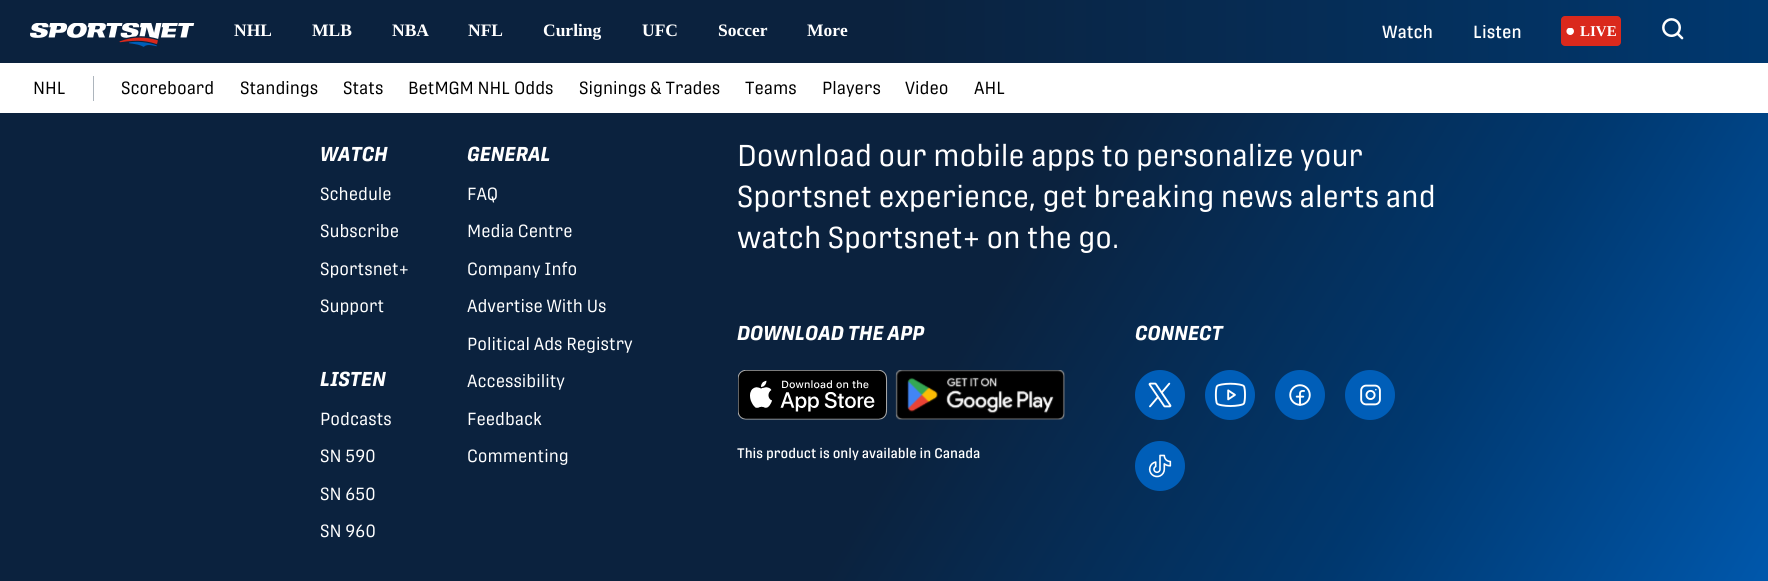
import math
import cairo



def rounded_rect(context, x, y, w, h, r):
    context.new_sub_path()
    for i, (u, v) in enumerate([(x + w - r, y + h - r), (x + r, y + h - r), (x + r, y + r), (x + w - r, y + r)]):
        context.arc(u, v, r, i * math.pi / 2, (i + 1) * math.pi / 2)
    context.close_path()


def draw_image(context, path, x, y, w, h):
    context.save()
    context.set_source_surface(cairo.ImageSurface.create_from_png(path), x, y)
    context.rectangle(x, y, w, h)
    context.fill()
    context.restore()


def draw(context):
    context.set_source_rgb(1, 1, 1)
    context.paint()
    gradient = cairo.LinearGradient(0, 31, 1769, 31)
    gradient.add_color_stop_rgba(0.5, 11 / 255, 34 / 255, 62 / 255, 1)
    gradient.add_color_stop_rgba(1, 0, 56 / 255, 111 / 255, 1)
    context.set_source(gradient)
    context.rectangle(0, 0, 1768, 63)
    context.fill()
    draw_image(context, "images/1.png", 30, 23, 165, 24)
    context.set_source_rgb(218 / 255, 41 / 255, 28 / 255)
    rounded_rect(context, 1561, 16, 60, 30, 4)
    context.fill()
    draw_image(context, "images/2.png", 1566, 28, 8, 7)
    draw_image(context, "images/3.png", 1662, 18, 22, 22)
    context.set_source_rgb(173 / 255, 181 / 255, 189 / 255)
    context.rectangle(93, 76, 1, 25)
    context.fill()
    gradient = cairo.LinearGradient(67, -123, 1701, 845)
    gradient.add_color_stop_rgba(0.53, 11 / 255, 34 / 255, 62 / 255, 1)
    gradient.add_color_stop_rgba(0.76, 0, 56 / 255, 111 / 255, 1)
    gradient.add_color_stop_rgba(1, 0, 94 / 255, 184 / 255, 1)
    context.set_source(gradient)
    context.rectangle(0, 113, 1768, 468)
    context.fill()
    draw_image(context, "images/4.png", 738, 370, 150, 50)
    draw_image(context, "images/5.png", 895, 370, 170, 50)
    draw_image(context, "images/6.png", 1135, 370, 50, 50)
    draw_image(context, "images/7.png", 1205, 370, 50, 50)
    draw_image(context, "images/8.png", 1275, 370, 50, 50)
    draw_image(context, "images/9.png", 1345, 370, 50, 50)
    draw_image(context, "images/10.png", 1135, 441, 50, 50)
    context.select_font_face("Liberation Serif", cairo.FontSlant.NORMAL, cairo.FontWeight.BOLD)
    context.set_font_size(17.5)
    context.set_source_rgb(1, 1, 1)
    context.move_to(234, 36)
    context.show_text("NHL")
    context.move_to(312, 36)
    context.show_text("MLB")
    context.move_to(392, 36)
    context.show_text("NBA")
    context.move_to(468, 36)
    context.show_text("NFL")
    context.move_to(543, 36)
    context.show_text("Curling")
    context.move_to(642, 36)
    context.show_text("UFC")
    context.move_to(718, 36)
    context.show_text("Soccer")
    context.move_to(807, 36)
    context.show_text("More")
    context.select_font_face("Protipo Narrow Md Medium")
    context.move_to(1382, 38)
    context.show_text("Watch")
    context.move_to(1473, 38)
    context.show_text("Listen")
    context.select_font_face("Liberation Serif", cairo.FontSlant.NORMAL, cairo.FontWeight.BOLD)
    context.set_font_size(15)
    context.move_to(1580, 36)
    context.show_text("LIVE")
    context.select_font_face("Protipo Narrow")
    context.set_font_size(17.5)
    context.set_source_rgb(0, 0, 0)
    context.move_to(33, 94)
    context.show_text("NHL")
    context.move_to(121, 94)
    context.show_text("Scoreboard")
    context.move_to(240, 94)
    context.show_text("Standings")
    context.move_to(343, 94)
    context.show_text("Stats")
    context.move_to(408, 94)
    context.show_text("BetMGM NHL Odds")
    context.move_to(579, 94)
    context.show_text("Signings & Trades")
    context.move_to(745, 94)
    context.show_text("Teams")
    context.move_to(822, 94)
    context.show_text("Players")
    context.move_to(905, 94)
    context.show_text("Video")
    context.move_to(974, 94)
    context.show_text("AHL")
    context.select_font_face("Protipo Narrow", cairo.FontSlant.ITALIC, cairo.FontWeight.BOLD)
    context.set_font_size(20)
    context.set_source_rgb(1, 1, 1)
    context.move_to(320, 161)
    context.show_text("WATCH")
    context.select_font_face("Protipo Narrow")
    context.set_font_size(17.5)
    context.move_to(320, 200)
    context.show_text("Schedule")
    context.move_to(320, 237)
    context.show_text("Subscribe")
    context.move_to(320, 275)
    context.show_text("Sportsnet+")
    context.move_to(320, 312)
    context.show_text("Support")
    context.select_font_face("Protipo Narrow", cairo.FontSlant.ITALIC, cairo.FontWeight.BOLD)
    context.set_font_size(20)
    context.move_to(320, 386)
    context.show_text("LISTEN")
    context.select_font_face("Protipo Narrow")
    context.set_font_size(17.5)
    context.move_to(320, 425)
    context.show_text("Podcasts")
    context.move_to(320, 462)
    context.show_text("SN 590")
    context.move_to(320, 500)
    context.show_text("SN 650")
    context.move_to(320, 537)
    context.show_text("SN 960")
    context.select_font_face("Protipo Narrow", cairo.FontSlant.ITALIC, cairo.FontWeight.BOLD)
    context.set_font_size(20)
    context.move_to(467, 161)
    context.show_text("GENERAL")
    context.select_font_face("Protipo Narrow")
    context.set_font_size(17.5)
    context.move_to(467, 200)
    context.show_text("FAQ")
    context.move_to(467, 237)
    context.show_text("Media Centre")
    context.move_to(467, 275)
    context.show_text("Company Info")
    context.move_to(467, 312)
    context.show_text("Advertise With Us")
    context.move_to(467, 350)
    context.show_text("Political Ads Registry")
    context.move_to(467, 387)
    context.show_text("Accessibility")
    context.move_to(467, 425)
    context.show_text("Feedback")
    context.move_to(467, 462)
    context.show_text("Commenting")
    context.set_font_size(30)
    context.move_to(737, 166)
    context.show_text("Download our mobile apps to personalize your")
    context.move_to(737, 207)
    context.show_text("Sportsnet experience, get breaking news alerts and")
    context.move_to(737, 248)
    context.show_text("watch Sportsnet+ on the go.")
    context.select_font_face("Protipo Narrow", cairo.FontSlant.ITALIC, cairo.FontWeight.BOLD)
    context.set_font_size(20)
    context.move_to(737, 340)
    context.show_text("DOWNLOAD THE APP")
    context.select_font_face("Protipo Narrow Md Medium")
    context.set_font_size(13.75)
    context.move_to(737, 458)
    context.show_text("This product is only available in Canada")
    context.select_font_face("Protipo Narrow", cairo.FontSlant.ITALIC, cairo.FontWeight.BOLD)
    context.set_font_size(20)
    context.move_to(1135, 340)
    context.show_text("CONNECT")


surface = cairo.ImageSurface(cairo.Format.RGB24, 1768, 581)
context = cairo.Context(surface)
options = cairo.FontOptions()
options.set_hint_metrics(cairo.HintMetrics.OFF)
options.set_hint_style(cairo.HintStyle.NONE)
context.set_font_options(options)
context.set_miter_limit(4)
draw(context)
surface.write_to_png("out.png")
